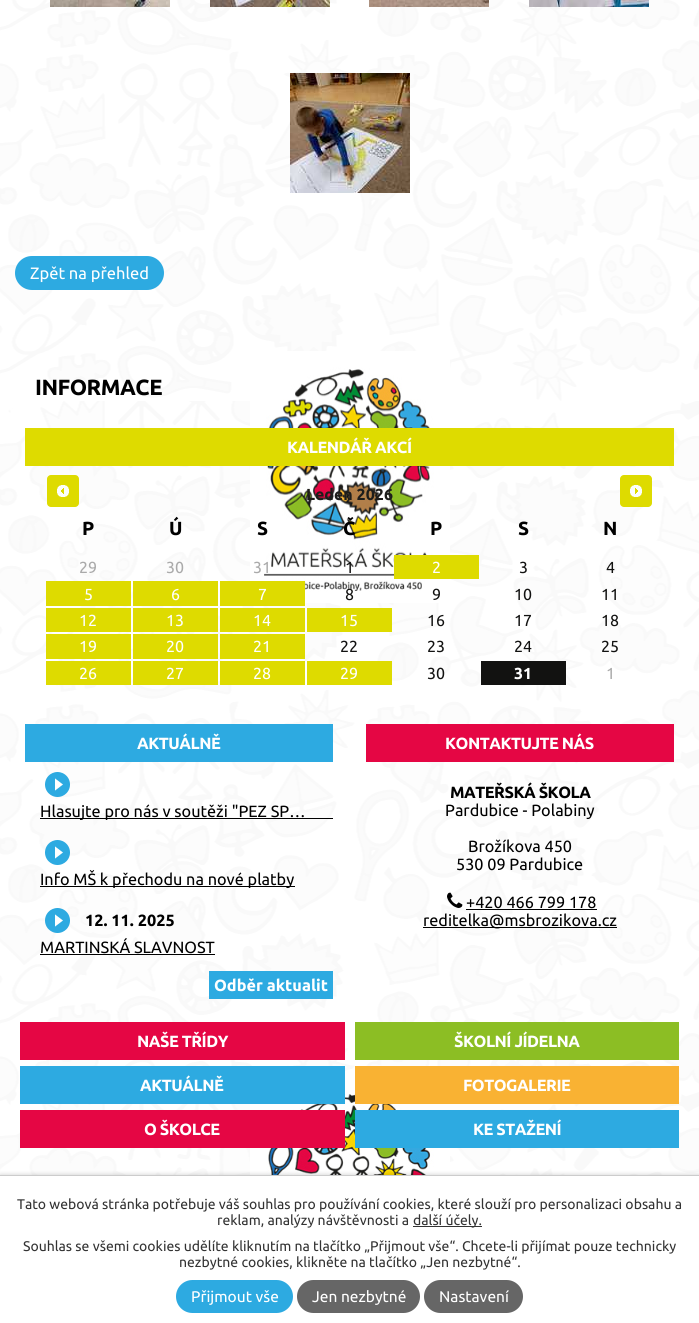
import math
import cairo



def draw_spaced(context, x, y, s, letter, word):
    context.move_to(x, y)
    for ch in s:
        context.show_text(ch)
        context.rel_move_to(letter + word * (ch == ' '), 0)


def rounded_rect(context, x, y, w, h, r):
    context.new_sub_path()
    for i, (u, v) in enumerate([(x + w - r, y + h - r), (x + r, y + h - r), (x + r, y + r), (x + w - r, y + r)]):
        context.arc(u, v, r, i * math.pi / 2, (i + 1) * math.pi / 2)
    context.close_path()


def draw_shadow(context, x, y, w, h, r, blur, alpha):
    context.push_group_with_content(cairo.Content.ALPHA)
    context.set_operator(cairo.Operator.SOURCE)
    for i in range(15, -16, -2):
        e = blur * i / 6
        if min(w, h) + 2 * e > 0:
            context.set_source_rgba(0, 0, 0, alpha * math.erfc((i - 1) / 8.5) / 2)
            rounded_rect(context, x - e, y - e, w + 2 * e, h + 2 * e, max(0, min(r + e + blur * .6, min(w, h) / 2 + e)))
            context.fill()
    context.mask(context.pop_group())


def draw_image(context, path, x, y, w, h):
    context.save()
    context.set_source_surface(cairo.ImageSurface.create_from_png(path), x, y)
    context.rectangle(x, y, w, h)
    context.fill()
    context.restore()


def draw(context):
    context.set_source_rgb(1, 1, 1)
    context.paint()
    draw_image(context, "images/1.png", 0, 0, 699, 1175)
    draw_image(context, "images/2.png", 50, 0, 120, 7)
    draw_image(context, "images/3.png", 210, 0, 120, 7)
    draw_image(context, "images/4.png", 369, 0, 120, 7)
    draw_image(context, "images/5.png", 529, 0, 120, 7)
    draw_image(context, "images/6.png", 290, 73, 120, 120)
    context.set_source_rgb(45 / 255, 170 / 255, 225 / 255)
    rounded_rect(context, 15, 256, 149, 34, 17)
    context.fill()
    draw_image(context, "images/7.png", 250, 351, 200, 824)
    context.set_source_rgb(222 / 255, 219 / 255, 0)
    context.rectangle(25, 428, 649, 38)
    context.fill()
    rounded_rect(context, 47, 475, 32, 32, 4)
    context.fill()
    draw_image(context, "images/8.png", 57, 485, 12, 12)
    rounded_rect(context, 620, 475, 32, 32, 4)
    context.fill()
    draw_image(context, "images/9.png", 630, 485, 12, 12)
    context.rectangle(394, 555, 85, 24)
    context.fill()
    context.rectangle(46, 581, 85, 25)
    context.fill()
    context.rectangle(133, 581, 85, 25)
    context.fill()
    context.rectangle(220, 581, 85, 25)
    context.fill()
    context.rectangle(46, 608, 85, 24)
    context.fill()
    context.rectangle(133, 608, 85, 24)
    context.fill()
    context.rectangle(220, 608, 85, 24)
    context.fill()
    context.rectangle(307, 608, 85, 24)
    context.fill()
    context.rectangle(46, 634, 85, 25)
    context.fill()
    context.rectangle(133, 634, 85, 25)
    context.fill()
    context.rectangle(220, 634, 85, 25)
    context.fill()
    context.rectangle(46, 661, 85, 24)
    context.fill()
    context.rectangle(133, 661, 85, 24)
    context.fill()
    context.rectangle(220, 661, 85, 24)
    context.fill()
    context.rectangle(307, 661, 85, 24)
    context.fill()
    context.set_source_rgb(18 / 255, 18 / 255, 17 / 255)
    context.rectangle(481, 661, 85, 24)
    context.fill()
    context.set_source_rgb(45 / 255, 170 / 255, 225 / 255)
    context.rectangle(25, 724, 308, 38)
    context.fill()
    draw_image(context, "images/10.png", 45, 772, 25, 25)
    context.set_source_rgb(0, 0, 0)
    context.rectangle(40, 818, 293, 1)
    context.fill()
    draw_image(context, "images/11.png", 45, 840, 25, 25)
    context.rectangle(40, 886, 255, 1)
    context.fill()
    draw_image(context, "images/12.png", 45, 908, 25, 25)
    context.rectangle(40, 954, 175, 1)
    context.fill()
    context.set_source_rgb(45 / 255, 170 / 255, 225 / 255)
    context.rectangle(209, 971, 124, 28)
    context.fill()
    context.set_source_rgb(229 / 255, 6 / 255, 68 / 255)
    context.rectangle(366, 724, 308, 38)
    context.fill()
    draw_image(context, "images/13.png", 447, 892, 16, 16)
    context.set_source_rgb(0, 0, 0)
    context.rectangle(466, 909, 131, 1)
    context.fill()
    context.rectangle(423, 927, 194, 1)
    context.fill()
    context.set_source_rgb(229 / 255, 6 / 255, 68 / 255)
    context.rectangle(20, 1022, 325, 38)
    context.fill()
    context.set_source_rgb(140 / 255, 190 / 255, 36 / 255)
    context.rectangle(355, 1022, 324, 38)
    context.fill()
    context.set_source_rgb(45 / 255, 170 / 255, 225 / 255)
    context.rectangle(20, 1066, 325, 38)
    context.fill()
    context.set_source_rgb(249 / 255, 178 / 255, 51 / 255)
    context.rectangle(355, 1066, 324, 38)
    context.fill()
    context.set_source_rgb(229 / 255, 6 / 255, 68 / 255)
    context.rectangle(20, 1110, 325, 38)
    context.fill()
    context.set_source_rgb(45 / 255, 170 / 255, 225 / 255)
    context.rectangle(355, 1110, 324, 38)
    context.fill()
    context.set_source_rgb(0, 0, 0)
    draw_shadow(context, 0, 1175, 699, 148, 0, 2.5, 0.2)
    context.set_source_rgb(1, 1, 1)
    context.rectangle(0, 1176, 699, 147)
    context.fill()
    context.set_source_rgb(204 / 255, 204 / 255, 204 / 255)
    context.rectangle(0, 1175, 699, 1)
    context.fill()
    context.set_source_rgb(51 / 255, 51 / 255, 51 / 255)
    context.rectangle(413, 1226, 69, 1)
    context.fill()
    context.set_source_rgb(45 / 255, 170 / 255, 225 / 255)
    rounded_rect(context, 176, 1280, 117, 33, 16.5)
    context.fill()
    context.set_source_rgb(102 / 255, 102 / 255, 102 / 255)
    rounded_rect(context, 297, 1280, 123, 33, 16.5)
    context.fill()
    rounded_rect(context, 424, 1280, 99, 33, 16.5)
    context.fill()
    context.select_font_face("Ubuntu")
    context.set_font_size(16.5)
    context.set_source_rgb(1, 1, 1)
    context.move_to(30, 279)
    context.show_text("Zpět na přehled")
    context.select_font_face("Ubuntu", cairo.FontSlant.NORMAL, cairo.FontWeight.BOLD)
    context.set_font_size(22)
    context.set_source_rgb(0, 0, 0)
    draw_spaced(context, 35, 395, "INFORMACE", -0.5, 0)
    context.set_font_size(16.25)
    context.set_source_rgb(1, 1, 1)
    draw_spaced(context, 287, 453, "KALENDÁŘ AKCÍ", -0.5, 0)
    context.set_font_size(16)
    context.set_source_rgb(29 / 255, 29 / 255, 27 / 255)
    context.move_to(306, 500)
    context.show_text("Leden 2026")
    context.set_font_size(19)
    context.set_source_rgb(0, 0, 0)
    context.move_to(82, 535)
    context.show_text("P")
    context.move_to(169, 535)
    context.show_text("Ú")
    context.move_to(257, 535)
    context.show_text("S")
    context.move_to(343, 535)
    context.show_text("Č")
    context.move_to(430, 535)
    context.show_text("P")
    context.move_to(518, 535)
    context.show_text("S")
    context.move_to(603, 535)
    context.show_text("N")
    context.select_font_face("Ubuntu")
    context.set_font_size(16)
    context.set_source_rgb(170 / 255, 170 / 255, 170 / 255)
    context.move_to(79, 573)
    context.show_text("29")
    context.move_to(166, 573)
    context.show_text("30")
    context.move_to(253, 573)
    context.show_text("31")
    context.set_source_rgb(18 / 255, 18 / 255, 17 / 255)
    context.move_to(345, 573)
    context.show_text("1")
    context.set_source_rgb(1, 1, 1)
    context.move_to(432, 573)
    context.show_text("2")
    context.set_source_rgb(18 / 255, 18 / 255, 17 / 255)
    context.move_to(519, 573)
    context.show_text("3")
    context.move_to(606, 573)
    context.show_text("4")
    context.set_source_rgb(1, 1, 1)
    context.move_to(84, 600)
    context.show_text("5")
    context.move_to(171, 600)
    context.show_text("6")
    context.move_to(258, 600)
    context.show_text("7")
    context.set_source_rgb(18 / 255, 18 / 255, 17 / 255)
    context.move_to(345, 600)
    context.show_text("8")
    context.move_to(432, 600)
    context.show_text("9")
    context.move_to(514, 600)
    context.show_text("10")
    context.move_to(601, 600)
    context.show_text("11")
    context.set_source_rgb(1, 1, 1)
    context.move_to(79, 626)
    context.show_text("12")
    context.move_to(166, 626)
    context.show_text("13")
    context.move_to(253, 626)
    context.show_text("14")
    context.move_to(340, 626)
    context.show_text("15")
    context.set_source_rgb(18 / 255, 18 / 255, 17 / 255)
    context.move_to(427, 626)
    context.show_text("16")
    context.move_to(514, 626)
    context.show_text("17")
    context.move_to(601, 626)
    context.show_text("18")
    context.set_source_rgb(1, 1, 1)
    context.move_to(79, 652)
    context.show_text("19")
    context.move_to(166, 652)
    context.show_text("20")
    context.move_to(253, 652)
    context.show_text("21")
    context.set_source_rgb(18 / 255, 18 / 255, 17 / 255)
    context.move_to(340, 652)
    context.show_text("22")
    context.move_to(427, 652)
    context.show_text("23")
    context.move_to(514, 652)
    context.show_text("24")
    context.move_to(601, 652)
    context.show_text("25")
    context.set_source_rgb(1, 1, 1)
    context.move_to(79, 679)
    context.show_text("26")
    context.move_to(166, 679)
    context.show_text("27")
    context.move_to(253, 679)
    context.show_text("28")
    context.move_to(340, 679)
    context.show_text("29")
    context.set_source_rgb(18 / 255, 18 / 255, 17 / 255)
    context.move_to(427, 679)
    context.show_text("30")
    context.select_font_face("Ubuntu", cairo.FontSlant.NORMAL, cairo.FontWeight.BOLD)
    context.set_source_rgb(1, 1, 1)
    context.move_to(514, 679)
    context.show_text("31")
    context.select_font_face("Ubuntu")
    context.set_source_rgb(170 / 255, 170 / 255, 170 / 255)
    context.move_to(606, 679)
    context.show_text("1")
    context.select_font_face("Ubuntu", cairo.FontSlant.NORMAL, cairo.FontWeight.BOLD)
    context.set_font_size(16.25)
    context.set_source_rgb(1, 1, 1)
    draw_spaced(context, 137, 749, "AKTUÁLNĚ", -0.5, 0)
    context.select_font_face("Ubuntu")
    context.set_source_rgb(0, 0, 0)
    context.move_to(40, 817)
    context.show_text("Hlasujte pro nás v soutěži \"PEZ SP…")
    context.move_to(40, 885)
    context.show_text("Info MŠ k přechodu na nové platby")
    context.select_font_face("Ubuntu", cairo.FontSlant.NORMAL, cairo.FontWeight.BOLD)
    context.move_to(85, 926)
    context.show_text("12. 11. 2025")
    context.select_font_face("Ubuntu")
    context.move_to(40, 953)
    context.show_text("MARTINSKÁ SLAVNOST")
    context.select_font_face("Ubuntu", cairo.FontSlant.NORMAL, cairo.FontWeight.BOLD)
    context.set_source_rgb(1, 1, 1)
    context.move_to(214, 991)
    context.show_text("Odběr aktualit")
    draw_spaced(context, 445, 749, "KONTAKTUJTE NÁS", -0.5, 0)
    context.set_source_rgb(0, 0, 0)
    draw_spaced(context, 450, 798, "MATEŘSKÁ ŠKOLA", -0.5, 0)
    context.select_font_face("Ubuntu")
    context.move_to(445, 816)
    context.show_text("Pardubice - Polabiny")
    context.move_to(468, 852)
    context.show_text("Brožíkova 450")
    context.move_to(456, 870)
    context.show_text("530 09 Pardubice")
    context.move_to(466, 908)
    context.show_text("+420 466 799 178")
    context.move_to(423, 926)
    context.show_text("reditelka@msbrozikova.cz")
    context.select_font_face("Ubuntu", cairo.FontSlant.NORMAL, cairo.FontWeight.BOLD)
    context.set_source_rgb(1, 1, 1)
    draw_spaced(context, 137, 1047, "NAŠE TŘÍDY", -0.5, 0)
    draw_spaced(context, 454, 1047, "ŠKOLNÍ JÍDELNA", -0.5, 0)
    draw_spaced(context, 140, 1091, "AKTUÁLNĚ", -0.5, 0)
    draw_spaced(context, 463, 1091, "FOTOGALERIE", -0.5, 0)
    draw_spaced(context, 144, 1135, "O ŠKOLCE", -0.5, 0)
    draw_spaced(context, 473, 1135, "KE STAŽENÍ", -0.5, 0)
    context.select_font_face("Ubuntu")
    context.set_font_size(14)
    context.set_source_rgb(51 / 255, 51 / 255, 51 / 255)
    context.move_to(17, 1209)
    context.show_text("Tato webová stránka potřebuje váš souhlas pro používání cookies, které slouží pro personalizaci obsahu a")
    context.move_to(217, 1225)
    context.show_text("reklam, analýzy návštěvnosti a")
    context.move_to(413, 1225)
    context.show_text("další účely.")
    context.move_to(23, 1251)
    context.show_text("Souhlas se všemi cookies udělíte kliknutím na tlačítko „Přijmout vše“. Chcete-li přijímat pouze technicky")
    context.move_to(179, 1267)
    context.show_text("nezbytné cookies, klikněte na tlačítko „Jen nezbytné“.")
    context.set_font_size(15.5)
    context.set_source_rgb(1, 1, 1)
    context.move_to(191, 1302)
    context.show_text("Přijmout vše")
    context.move_to(312, 1302)
    context.show_text("Jen nezbytné")
    context.move_to(439, 1302)
    context.show_text("Nastavení")


surface = cairo.ImageSurface(cairo.Format.RGB24, 699, 1323)
context = cairo.Context(surface)
options = cairo.FontOptions()
options.set_hint_metrics(cairo.HintMetrics.OFF)
options.set_hint_style(cairo.HintStyle.NONE)
context.set_font_options(options)
context.set_miter_limit(4)
draw(context)
surface.write_to_png("out.png")
